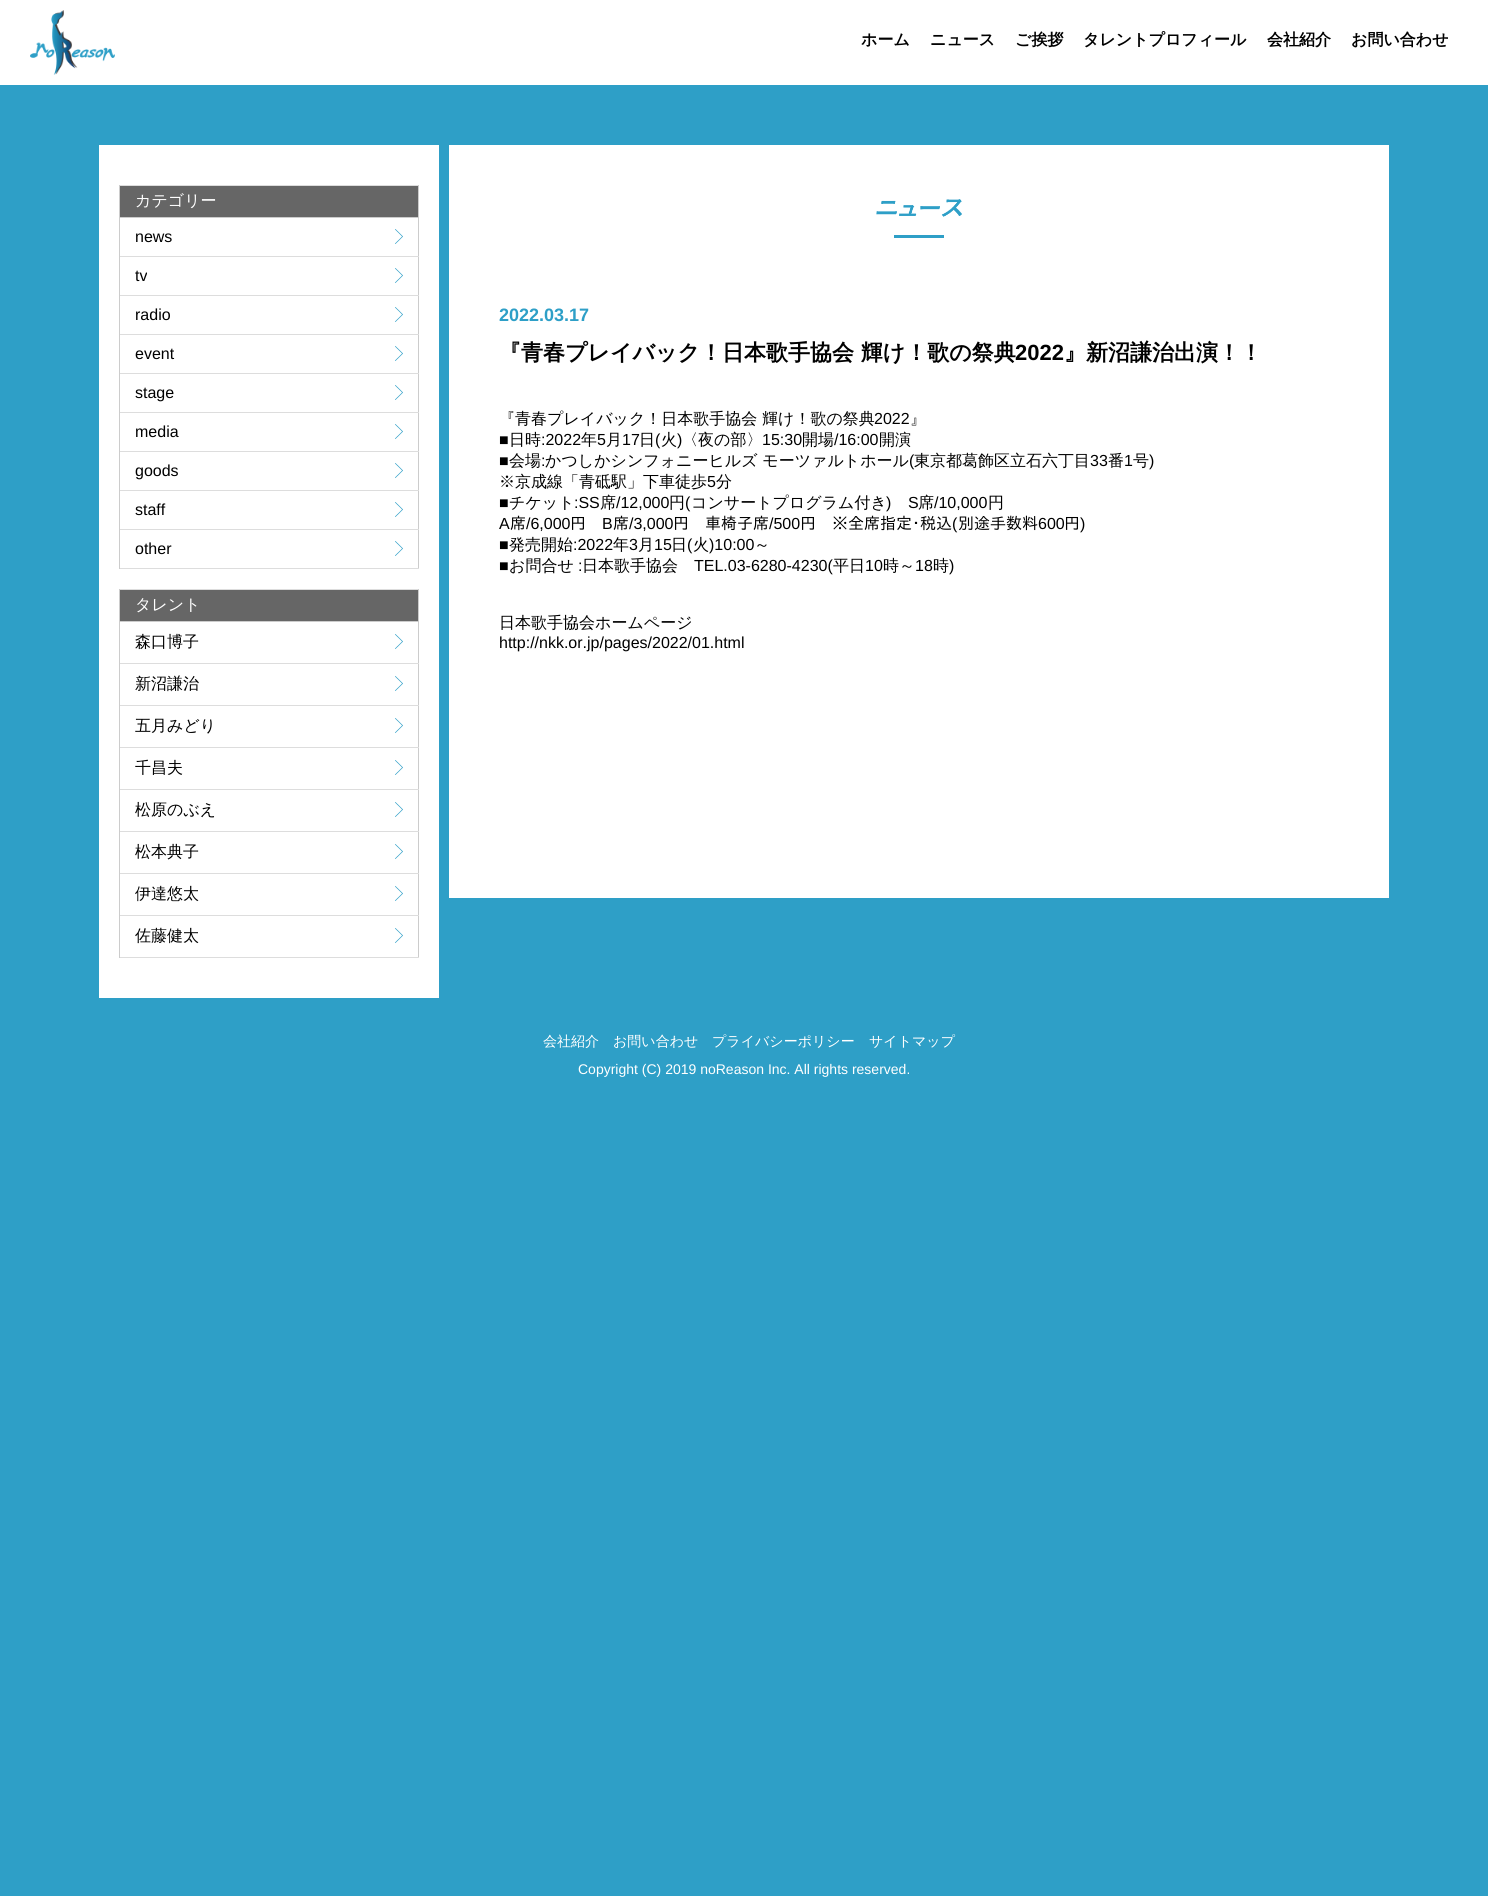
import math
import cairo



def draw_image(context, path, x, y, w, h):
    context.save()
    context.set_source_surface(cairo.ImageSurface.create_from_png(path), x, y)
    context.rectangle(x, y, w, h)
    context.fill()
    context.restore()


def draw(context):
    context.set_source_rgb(46 / 255, 159 / 255, 199 / 255)
    context.paint()
    context.set_source_rgb(1, 1, 1)
    context.rectangle(0, 0, 1488, 85)
    context.fill()
    draw_image(context, "images/1.png", 30, 10, 85, 65)
    context.rectangle(99, 145, 340, 853)
    context.fill()
    context.set_source_rgb(102 / 255, 102 / 255, 102 / 255)
    context.rectangle(120, 186, 298, 31)
    context.fill()
    context.set_source_rgb(221 / 255, 221 / 255, 221 / 255)
    context.rectangle(119, 185, 300, 1)
    context.fill()
    context.set_source_rgb(204 / 255, 204 / 255, 204 / 255)
    context.rectangle(418, 185, 1, 384)
    context.fill()
    context.rectangle(119, 217, 300, 1)
    context.fill()
    context.rectangle(119, 185, 1, 33)
    context.fill()
    context.set_source_rgb(221 / 255, 221 / 255, 221 / 255)
    context.rectangle(119, 256, 300, 1)
    context.fill()
    context.set_source_rgb(204 / 255, 204 / 255, 204 / 255)
    context.rectangle(119, 218, 1, 39)
    context.fill()
    draw_image(context, "images/2.png", 395, 229, 8, 15)
    context.set_source_rgb(221 / 255, 221 / 255, 221 / 255)
    context.rectangle(119, 295, 300, 1)
    context.fill()
    context.set_source_rgb(204 / 255, 204 / 255, 204 / 255)
    context.rectangle(119, 257, 1, 39)
    context.fill()
    draw_image(context, "images/2.png", 395, 268, 8, 15)
    context.set_source_rgb(221 / 255, 221 / 255, 221 / 255)
    context.rectangle(119, 334, 300, 1)
    context.fill()
    context.set_source_rgb(204 / 255, 204 / 255, 204 / 255)
    context.rectangle(119, 296, 1, 39)
    context.fill()
    draw_image(context, "images/2.png", 395, 307, 8, 15)
    context.set_source_rgb(221 / 255, 221 / 255, 221 / 255)
    context.rectangle(119, 373, 300, 1)
    context.fill()
    context.set_source_rgb(204 / 255, 204 / 255, 204 / 255)
    context.rectangle(119, 335, 1, 39)
    context.fill()
    draw_image(context, "images/2.png", 395, 346, 8, 15)
    context.set_source_rgb(221 / 255, 221 / 255, 221 / 255)
    context.rectangle(119, 412, 300, 1)
    context.fill()
    context.set_source_rgb(204 / 255, 204 / 255, 204 / 255)
    context.rectangle(119, 374, 1, 39)
    context.fill()
    draw_image(context, "images/2.png", 395, 385, 8, 15)
    context.set_source_rgb(221 / 255, 221 / 255, 221 / 255)
    context.rectangle(119, 451, 300, 1)
    context.fill()
    context.set_source_rgb(204 / 255, 204 / 255, 204 / 255)
    context.rectangle(119, 413, 1, 39)
    context.fill()
    draw_image(context, "images/2.png", 395, 424, 8, 15)
    context.set_source_rgb(221 / 255, 221 / 255, 221 / 255)
    context.rectangle(119, 490, 300, 1)
    context.fill()
    context.set_source_rgb(204 / 255, 204 / 255, 204 / 255)
    context.rectangle(119, 452, 1, 39)
    context.fill()
    draw_image(context, "images/2.png", 395, 463, 8, 15)
    context.set_source_rgb(221 / 255, 221 / 255, 221 / 255)
    context.rectangle(119, 529, 300, 1)
    context.fill()
    context.set_source_rgb(204 / 255, 204 / 255, 204 / 255)
    context.rectangle(119, 491, 1, 39)
    context.fill()
    draw_image(context, "images/2.png", 395, 502, 8, 15)
    context.set_source_rgb(221 / 255, 221 / 255, 221 / 255)
    context.rectangle(119, 568, 300, 1)
    context.fill()
    context.set_source_rgb(204 / 255, 204 / 255, 204 / 255)
    context.rectangle(119, 530, 1, 39)
    context.fill()
    draw_image(context, "images/2.png", 395, 541, 8, 15)
    context.set_source_rgb(102 / 255, 102 / 255, 102 / 255)
    context.rectangle(120, 590, 298, 31)
    context.fill()
    context.set_source_rgb(221 / 255, 221 / 255, 221 / 255)
    context.rectangle(119, 589, 300, 1)
    context.fill()
    context.set_source_rgb(204 / 255, 204 / 255, 204 / 255)
    context.rectangle(418, 589, 1, 369)
    context.fill()
    context.rectangle(119, 621, 300, 1)
    context.fill()
    context.rectangle(119, 589, 1, 33)
    context.fill()
    context.set_source_rgb(221 / 255, 221 / 255, 221 / 255)
    context.rectangle(119, 663, 300, 1)
    context.fill()
    context.set_source_rgb(204 / 255, 204 / 255, 204 / 255)
    context.rectangle(119, 622, 1, 42)
    context.fill()
    draw_image(context, "images/2.png", 395, 634, 8, 15)
    context.set_source_rgb(221 / 255, 221 / 255, 221 / 255)
    context.rectangle(119, 705, 300, 1)
    context.fill()
    context.set_source_rgb(204 / 255, 204 / 255, 204 / 255)
    context.rectangle(119, 664, 1, 42)
    context.fill()
    draw_image(context, "images/2.png", 395, 676, 8, 15)
    context.set_source_rgb(221 / 255, 221 / 255, 221 / 255)
    context.rectangle(119, 747, 300, 1)
    context.fill()
    context.set_source_rgb(204 / 255, 204 / 255, 204 / 255)
    context.rectangle(119, 706, 1, 42)
    context.fill()
    draw_image(context, "images/2.png", 395, 718, 8, 15)
    context.set_source_rgb(221 / 255, 221 / 255, 221 / 255)
    context.rectangle(119, 789, 300, 1)
    context.fill()
    context.set_source_rgb(204 / 255, 204 / 255, 204 / 255)
    context.rectangle(119, 748, 1, 42)
    context.fill()
    draw_image(context, "images/2.png", 395, 760, 8, 15)
    context.set_source_rgb(221 / 255, 221 / 255, 221 / 255)
    context.rectangle(119, 831, 300, 1)
    context.fill()
    context.set_source_rgb(204 / 255, 204 / 255, 204 / 255)
    context.rectangle(119, 790, 1, 42)
    context.fill()
    draw_image(context, "images/2.png", 395, 802, 8, 15)
    context.set_source_rgb(221 / 255, 221 / 255, 221 / 255)
    context.rectangle(119, 873, 300, 1)
    context.fill()
    context.set_source_rgb(204 / 255, 204 / 255, 204 / 255)
    context.rectangle(119, 832, 1, 42)
    context.fill()
    draw_image(context, "images/2.png", 395, 844, 8, 15)
    context.set_source_rgb(221 / 255, 221 / 255, 221 / 255)
    context.rectangle(119, 915, 300, 1)
    context.fill()
    context.set_source_rgb(204 / 255, 204 / 255, 204 / 255)
    context.rectangle(119, 874, 1, 42)
    context.fill()
    draw_image(context, "images/2.png", 395, 886, 8, 15)
    context.set_source_rgb(221 / 255, 221 / 255, 221 / 255)
    context.rectangle(119, 957, 300, 1)
    context.fill()
    context.set_source_rgb(204 / 255, 204 / 255, 204 / 255)
    context.rectangle(119, 916, 1, 42)
    context.fill()
    draw_image(context, "images/2.png", 395, 928, 8, 15)
    context.set_source_rgb(1, 1, 1)
    context.rectangle(449, 145, 940, 753)
    context.fill()
    draw_image(context, "images/3.png", 876, 199, 86, 39)
    context.select_font_face("WenQuanYi Zen Hei", cairo.FontSlant.NORMAL, cairo.FontWeight.BOLD)
    context.set_font_size(16)
    context.set_source_rgb(0, 0, 0)
    context.move_to(861, 45)
    context.show_text("ホーム")
    context.move_to(930, 45)
    context.show_text("ニュース")
    context.move_to(1015, 45)
    context.show_text("ご挨拶")
    context.move_to(1083, 45)
    context.show_text("タレントプロフィール")
    context.move_to(1267, 45)
    context.show_text("会社紹介")
    context.move_to(1351, 45)
    context.show_text("お問い合わせ")
    context.select_font_face("WenQuanYi Zen Hei Medium")
    context.set_source_rgb(1, 1, 1)
    context.move_to(135, 206)
    context.show_text("カテゴリー")
    context.select_font_face("Liberation Sans")
    context.set_source_rgb(0, 0, 0)
    context.move_to(135, 242)
    context.show_text("news")
    context.move_to(135, 281)
    context.show_text("tv")
    context.move_to(135, 320)
    context.show_text("radio")
    context.move_to(135, 359)
    context.show_text("event")
    context.move_to(135, 398)
    context.show_text("stage")
    context.move_to(135, 437)
    context.show_text("media")
    context.move_to(135, 476)
    context.show_text("goods")
    context.move_to(135, 515)
    context.show_text("staff")
    context.move_to(135, 554)
    context.show_text("other")
    context.select_font_face("WenQuanYi Zen Hei Medium")
    context.set_source_rgb(1, 1, 1)
    context.move_to(135, 610)
    context.show_text("タレント")
    context.set_source_rgb(0, 0, 0)
    context.move_to(135, 647)
    context.show_text("森口博子")
    context.move_to(135, 689)
    context.show_text("新沼謙治")
    context.move_to(135, 731)
    context.show_text("五月みどり")
    context.move_to(135, 773)
    context.show_text("千昌夫")
    context.move_to(135, 815)
    context.show_text("松原のぶえ")
    context.move_to(135, 857)
    context.show_text("松本典子")
    context.move_to(135, 899)
    context.show_text("伊達悠太")
    context.move_to(135, 941)
    context.show_text("佐藤健太")
    context.select_font_face("Liberation Sans", cairo.FontSlant.NORMAL, cairo.FontWeight.BOLD)
    context.set_font_size(18)
    context.set_source_rgb(46 / 255, 159 / 255, 199 / 255)
    context.move_to(499, 321)
    context.show_text("2022.03.17")
    context.select_font_face("WenQuanYi Zen Hei", cairo.FontSlant.NORMAL, cairo.FontWeight.BOLD)
    context.set_font_size(22)
    context.set_source_rgb(0, 0, 0)
    context.move_to(499, 360)
    context.show_text("『青春プレイバック！日本歌手協会 輝け！歌の祭典")
    context.select_font_face("Liberation Sans", cairo.FontSlant.NORMAL, cairo.FontWeight.BOLD)
    context.move_to(1015, 360)
    context.show_text("2022")
    context.select_font_face("WenQuanYi Zen Hei", cairo.FontSlant.NORMAL, cairo.FontWeight.BOLD)
    context.move_to(1064, 360)
    context.show_text("』新沼謙治出演！！")
    context.select_font_face("WenQuanYi Zen Hei Medium")
    context.set_font_size(16)
    context.move_to(499, 424)
    context.show_text("『青春プレイバック！日本歌手協会 輝け！歌の祭典")
    context.select_font_face("Liberation Sans")
    context.move_to(874, 424)
    context.show_text("2022")
    context.select_font_face("WenQuanYi Zen Hei Medium")
    context.move_to(910, 424)
    context.show_text("』")
    context.select_font_face("Liberation Sans")
    context.move_to(499, 445)
    context.show_text("■")
    context.select_font_face("WenQuanYi Zen Hei Medium")
    context.move_to(509, 445)
    context.show_text("日時")
    context.select_font_face("Liberation Sans")
    context.move_to(541, 445)
    context.show_text(":2022")
    context.select_font_face("WenQuanYi Zen Hei Medium")
    context.move_to(581, 445)
    context.show_text("年")
    context.select_font_face("Liberation Sans")
    context.move_to(597, 445)
    context.show_text("5")
    context.select_font_face("WenQuanYi Zen Hei Medium")
    context.move_to(606, 445)
    context.show_text("月")
    context.select_font_face("Liberation Sans")
    context.move_to(622, 445)
    context.show_text("17")
    context.select_font_face("WenQuanYi Zen Hei Medium")
    context.move_to(639, 445)
    context.show_text("日")
    context.select_font_face("Liberation Sans")
    context.move_to(655, 445)
    context.show_text("(")
    context.select_font_face("WenQuanYi Zen Hei Medium")
    context.move_to(661, 445)
    context.show_text("火")
    context.select_font_face("Liberation Sans")
    context.move_to(677, 445)
    context.show_text(")")
    context.select_font_face("WenQuanYi Zen Hei Medium")
    context.move_to(682, 445)
    context.show_text("〈夜の部〉")
    context.select_font_face("Liberation Sans")
    context.move_to(762, 445)
    context.show_text("15:30")
    context.select_font_face("WenQuanYi Zen Hei Medium")
    context.move_to(802, 445)
    context.show_text("開場")
    context.select_font_face("Liberation Sans")
    context.move_to(834, 445)
    context.show_text("/16:00")
    context.select_font_face("WenQuanYi Zen Hei Medium")
    context.move_to(879, 445)
    context.show_text("開演")
    context.select_font_face("Liberation Sans")
    context.move_to(499, 466)
    context.show_text("■")
    context.select_font_face("WenQuanYi Zen Hei Medium")
    context.move_to(509, 466)
    context.show_text("会場")
    context.select_font_face("Liberation Sans")
    context.move_to(541, 466)
    context.show_text(":")
    context.select_font_face("WenQuanYi Zen Hei Medium")
    context.move_to(545, 466)
    context.show_text("かつしかシンフォニーヒルズ モーツァルトホール")
    context.select_font_face("Liberation Sans")
    context.move_to(909, 466)
    context.show_text("(")
    context.select_font_face("WenQuanYi Zen Hei Medium")
    context.move_to(914, 466)
    context.show_text("東京都葛飾区立石六丁目")
    context.select_font_face("Liberation Sans")
    context.move_to(1090, 466)
    context.show_text("33")
    context.select_font_face("WenQuanYi Zen Hei Medium")
    context.move_to(1108, 466)
    context.show_text("番")
    context.select_font_face("Liberation Sans")
    context.move_to(1124, 466)
    context.show_text("1")
    context.select_font_face("WenQuanYi Zen Hei Medium")
    context.move_to(1133, 466)
    context.show_text("号")
    context.select_font_face("Liberation Sans")
    context.move_to(1149, 466)
    context.show_text(")")
    context.select_font_face("WenQuanYi Zen Hei Medium")
    context.move_to(499, 487)
    context.show_text("※京成線「青砥駅」下車徒歩")
    context.select_font_face("Liberation Sans")
    context.move_to(707, 487)
    context.show_text("5")
    context.select_font_face("WenQuanYi Zen Hei Medium")
    context.move_to(716, 487)
    context.show_text("分")
    context.select_font_face("Liberation Sans")
    context.move_to(499, 508)
    context.show_text("■")
    context.select_font_face("WenQuanYi Zen Hei Medium")
    context.move_to(509, 508)
    context.show_text("チケット")
    context.select_font_face("Liberation Sans")
    context.move_to(574, 508)
    context.show_text(":SS")
    context.select_font_face("WenQuanYi Zen Hei Medium")
    context.move_to(600, 508)
    context.show_text("席")
    context.select_font_face("Liberation Sans")
    context.move_to(616, 508)
    context.show_text("/12,000")
    context.select_font_face("WenQuanYi Zen Hei Medium")
    context.move_to(669, 508)
    context.show_text("円")
    context.select_font_face("Liberation Sans")
    context.move_to(685, 508)
    context.show_text("(")
    context.select_font_face("WenQuanYi Zen Hei Medium")
    context.move_to(691, 508)
    context.show_text("コンサートプログラム付き")
    context.select_font_face("Liberation Sans")
    context.move_to(886, 508)
    context.show_text(")")
    context.move_to(908, 508)
    context.show_text("S")
    context.select_font_face("WenQuanYi Zen Hei Medium")
    context.move_to(918, 508)
    context.show_text("席")
    context.select_font_face("Liberation Sans")
    context.move_to(934, 508)
    context.show_text("/10,000")
    context.select_font_face("WenQuanYi Zen Hei Medium")
    context.move_to(988, 508)
    context.show_text("円")
    context.select_font_face("Liberation Sans")
    context.move_to(499, 529)
    context.show_text("A")
    context.select_font_face("IPAPGothic")
    context.move_to(510, 529)
    context.show_text("席")
    context.select_font_face("Liberation Sans")
    context.move_to(526, 529)
    context.show_text("/6,000")
    context.select_font_face("IPAPGothic")
    context.move_to(570, 529)
    context.show_text("円")
    context.select_font_face("Liberation Sans")
    context.move_to(602, 529)
    context.show_text("B")
    context.select_font_face("IPAPGothic")
    context.move_to(613, 529)
    context.show_text("席")
    context.select_font_face("Liberation Sans")
    context.move_to(629, 529)
    context.show_text("/3,000")
    context.select_font_face("IPAPGothic")
    context.move_to(673, 529)
    context.show_text("円　車椅子席")
    context.select_font_face("Liberation Sans")
    context.move_to(769, 529)
    context.show_text("/500")
    context.select_font_face("IPAPGothic")
    context.move_to(800, 529)
    context.show_text("円　※全席指定･税込")
    context.select_font_face("Liberation Sans")
    context.move_to(952, 529)
    context.show_text("(")
    context.select_font_face("IPAPGothic")
    context.move_to(958, 529)
    context.show_text("別途手数料")
    context.select_font_face("Liberation Sans")
    context.move_to(1038, 529)
    context.show_text("600")
    context.select_font_face("IPAPGothic")
    context.move_to(1064, 529)
    context.show_text("円")
    context.select_font_face("Liberation Sans")
    context.move_to(1080, 529)
    context.show_text(")")
    context.move_to(499, 550)
    context.show_text("■")
    context.select_font_face("WenQuanYi Zen Hei Medium")
    context.move_to(509, 550)
    context.show_text("発売開始")
    context.select_font_face("Liberation Sans")
    context.move_to(573, 550)
    context.show_text(":2022")
    context.select_font_face("WenQuanYi Zen Hei Medium")
    context.move_to(613, 550)
    context.show_text("年")
    context.select_font_face("Liberation Sans")
    context.move_to(629, 550)
    context.show_text("3")
    context.select_font_face("WenQuanYi Zen Hei Medium")
    context.move_to(638, 550)
    context.show_text("月")
    context.select_font_face("Liberation Sans")
    context.move_to(654, 550)
    context.show_text("15")
    context.select_font_face("WenQuanYi Zen Hei Medium")
    context.move_to(671, 550)
    context.show_text("日")
    context.select_font_face("Liberation Sans")
    context.move_to(687, 550)
    context.show_text("(")
    context.select_font_face("WenQuanYi Zen Hei Medium")
    context.move_to(693, 550)
    context.show_text("火")
    context.select_font_face("Liberation Sans")
    context.move_to(709, 550)
    context.show_text(")10:00")
    context.select_font_face("WenQuanYi Zen Hei Medium")
    context.move_to(754, 550)
    context.show_text("～")
    context.select_font_face("Liberation Sans")
    context.move_to(499, 571)
    context.show_text("■")
    context.select_font_face("WenQuanYi Zen Hei Medium")
    context.move_to(509, 571)
    context.show_text("お問合せ")
    context.select_font_face("Liberation Sans")
    context.move_to(578, 571)
    context.show_text(":")
    context.select_font_face("WenQuanYi Zen Hei Medium")
    context.move_to(582, 571)
    context.show_text("日本歌手協会")
    context.select_font_face("Liberation Sans")
    context.move_to(694, 571)
    context.show_text("TEL.03-6280-4230(")
    context.select_font_face("WenQuanYi Zen Hei Medium")
    context.move_to(833, 571)
    context.show_text("平日")
    context.select_font_face("Liberation Sans")
    context.move_to(865, 571)
    context.show_text("10")
    context.select_font_face("WenQuanYi Zen Hei Medium")
    context.move_to(883, 571)
    context.show_text("時～")
    context.select_font_face("Liberation Sans")
    context.move_to(915, 571)
    context.show_text("18")
    context.select_font_face("WenQuanYi Zen Hei Medium")
    context.move_to(933, 571)
    context.show_text("時")
    context.select_font_face("Liberation Sans")
    context.move_to(949, 571)
    context.show_text(")")
    context.select_font_face("WenQuanYi Zen Hei Medium")
    context.move_to(499, 628)
    context.show_text("日本歌手協会ホームページ")
    context.select_font_face("Liberation Sans")
    context.move_to(499, 648)
    context.show_text("http://nkk.or.jp/pages/2022/01.html")
    context.select_font_face("WenQuanYi Zen Hei Medium")
    context.set_font_size(14)
    context.set_source_rgb(1, 1, 1)
    context.move_to(543, 1046)
    context.show_text("会社紹介")
    context.move_to(613, 1046)
    context.show_text("お問い合わせ")
    context.move_to(712, 1046)
    context.show_text("プライバシーポリシー")
    context.move_to(869, 1046)
    context.show_text("サイトマップ")
    context.select_font_face("Liberation Sans")
    context.move_to(578, 1074)
    context.show_text("Copyright (C) 2019 noReason Inc. All rights reserved.")


surface = cairo.ImageSurface(cairo.Format.RGB24, 1488, 1896)
context = cairo.Context(surface)
options = cairo.FontOptions()
options.set_hint_metrics(cairo.HintMetrics.OFF)
options.set_hint_style(cairo.HintStyle.NONE)
context.set_font_options(options)
context.set_miter_limit(4)
draw(context)
surface.write_to_png("out.png")
